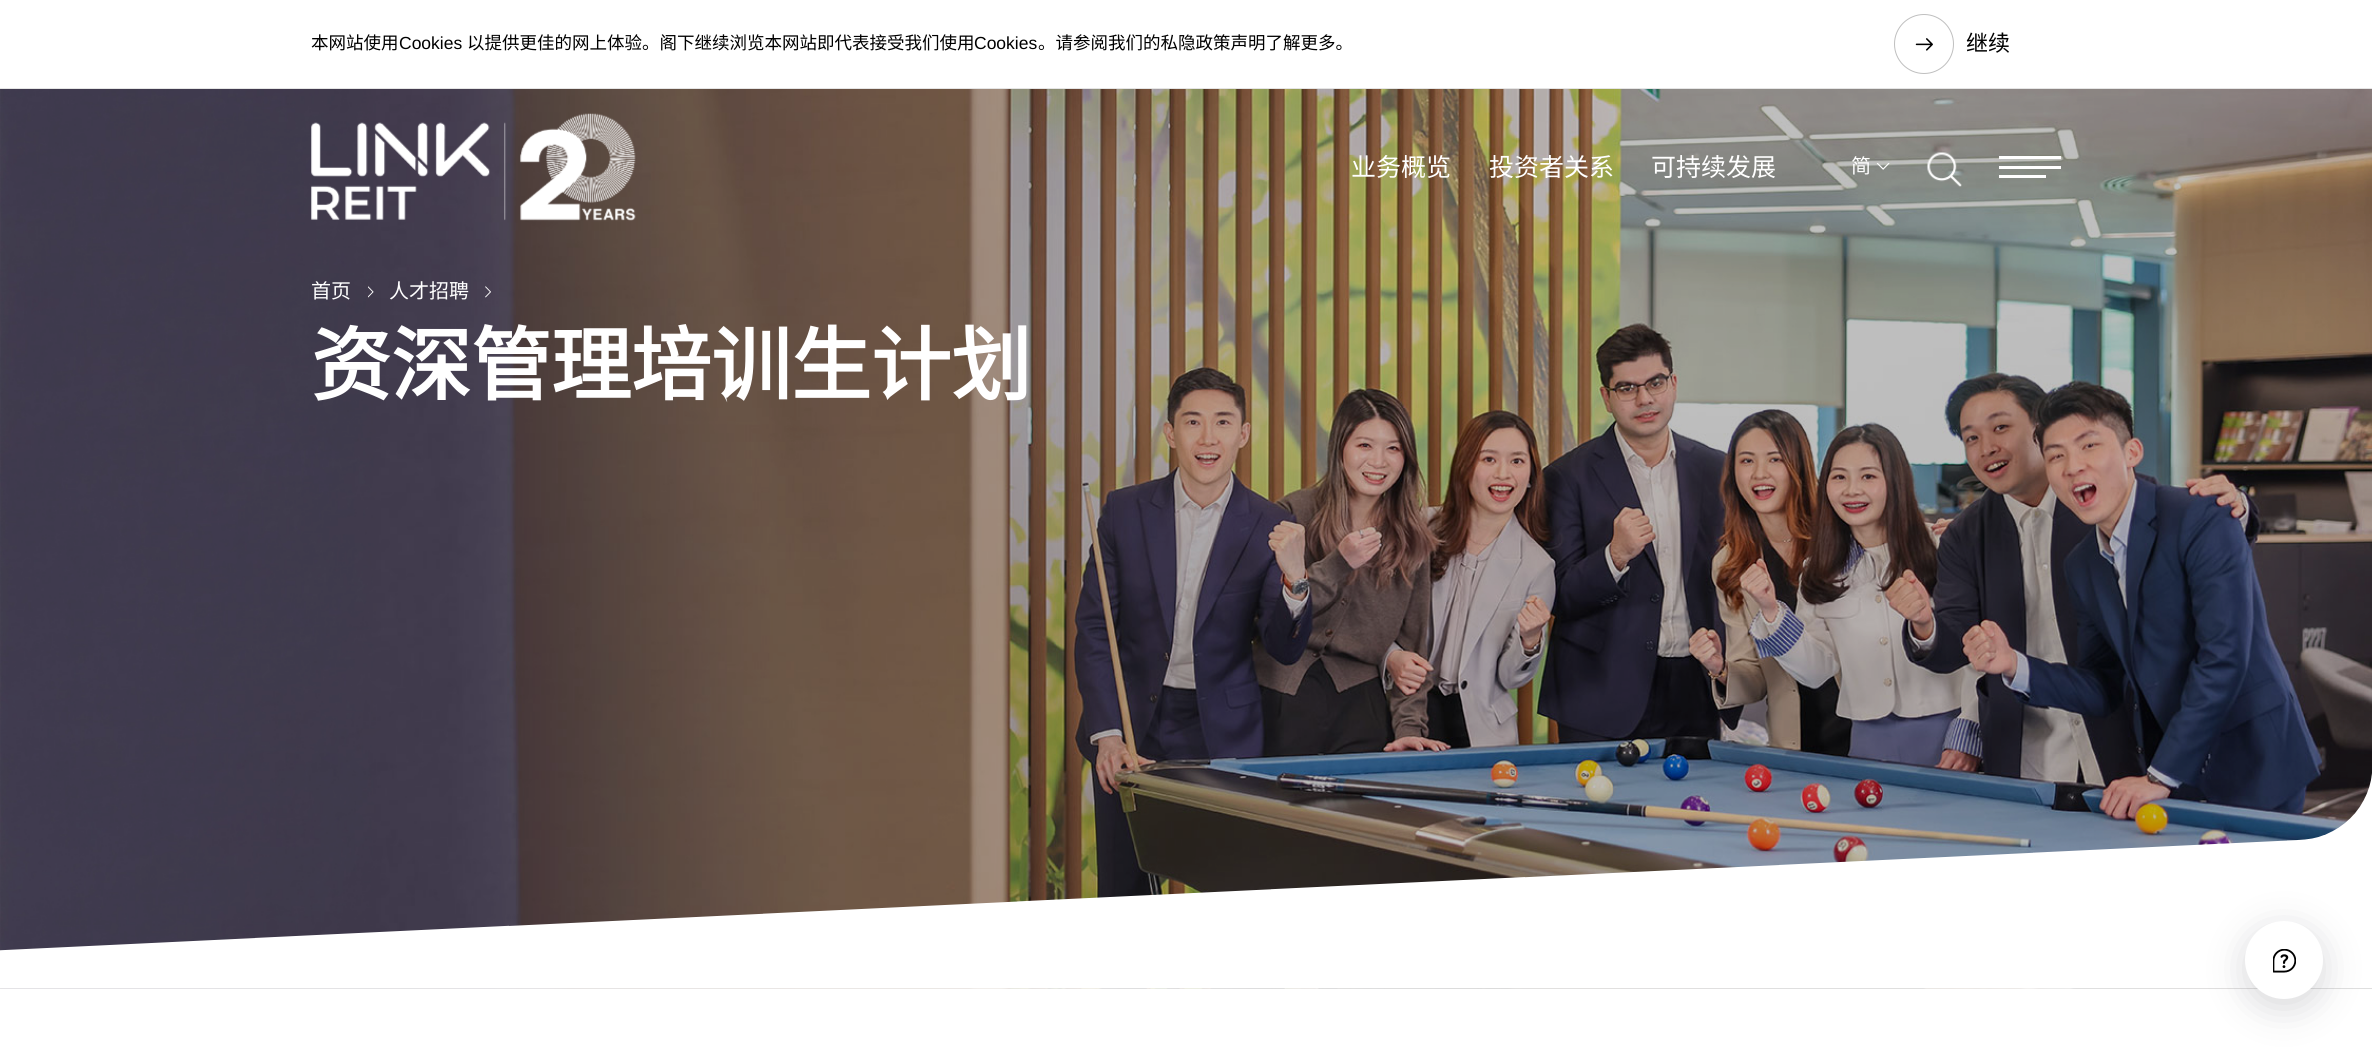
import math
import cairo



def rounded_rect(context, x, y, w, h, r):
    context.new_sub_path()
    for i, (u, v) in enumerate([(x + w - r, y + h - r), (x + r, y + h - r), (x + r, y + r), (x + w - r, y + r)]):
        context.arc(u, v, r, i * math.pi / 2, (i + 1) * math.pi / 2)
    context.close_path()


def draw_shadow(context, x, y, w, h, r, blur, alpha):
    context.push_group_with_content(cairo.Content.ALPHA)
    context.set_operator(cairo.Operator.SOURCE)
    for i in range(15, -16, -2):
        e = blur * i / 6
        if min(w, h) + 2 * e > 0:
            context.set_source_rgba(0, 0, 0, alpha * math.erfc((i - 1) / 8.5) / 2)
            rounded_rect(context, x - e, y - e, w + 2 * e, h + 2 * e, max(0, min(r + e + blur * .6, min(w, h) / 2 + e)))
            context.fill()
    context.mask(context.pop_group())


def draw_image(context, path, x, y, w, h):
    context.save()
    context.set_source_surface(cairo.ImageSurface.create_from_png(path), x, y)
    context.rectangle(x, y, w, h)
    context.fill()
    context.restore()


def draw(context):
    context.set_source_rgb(1, 1, 1)
    context.paint()
    context.set_source_rgb(229 / 255, 229 / 255, 229 / 255)
    context.rectangle(0, 88, 2372, 1)
    context.fill()
    context.arc(1924, 44, 29.5, 0, 2 * math.pi)
    context.set_source_rgb(191 / 255, 191 / 255, 191 / 255)
    context.set_line_width(1)
    context.stroke()
    draw_image(context, "images/1.png", 1915, 38, 18, 13)
    draw_image(context, "images/5.png", 0, 89, 2372, 900)
    draw_image(context, "images/2.png", 311, 113, 325, 108)
    draw_image(context, "images/3.png", 1876, 163, 14, 7)
    draw_image(context, "images/4.png", 1927, 152, 35, 35)
    context.set_source_rgb(1, 1, 1)
    context.rectangle(1999, 156, 62, 3)
    context.fill()
    context.rectangle(1999, 166, 62, 3)
    context.fill()
    context.rectangle(1999, 175, 47, 3)
    context.fill()
    draw_image(context, "images/6.png", 368, 286, 6, 12)
    draw_image(context, "images/7.png", 485, 286, 6, 12)
    draw_image(context, "images/8.png", 0, 773, 2372, 216)
    context.set_source_rgb(100 / 255, 100 / 255, 111 / 255)
    draw_shadow(context, 2245, 930, 78, 78, 39, 18, 0.25)
    context.set_source_rgb(1, 1, 1)
    context.arc(2284, 960, 39, 0, 2 * math.pi)
    context.fill()
    draw_image(context, "images/9.png", 2273, 949, 23, 24)
    context.select_font_face("Noto Sans CJK SC")
    context.set_font_size(17.5)
    context.set_source_rgb(0, 0, 0)
    context.move_to(311, 49)
    context.show_text("本网站使用")
    context.select_font_face("Liberation Sans")
    context.move_to(399, 49)
    context.show_text("Cookies")
    context.select_font_face("Noto Sans CJK SC")
    context.move_to(467, 49)
    context.show_text("以提供更佳的网上体验。阁下继续浏览本网站即代表接受我们使用")
    context.select_font_face("Liberation Sans")
    context.move_to(974, 49)
    context.show_text("Cookies")
    context.select_font_face("Noto Sans CJK SC")
    context.move_to(1038, 49)
    context.show_text("。请参阅我们的私隐政策声明了解更多。")
    context.set_font_size(22)
    context.move_to(1966, 51)
    context.show_text("继续")
    context.set_font_size(25)
    context.set_source_rgb(1, 1, 1)
    context.move_to(1351, 176)
    context.show_text("业务概览")
    context.move_to(1489, 176)
    context.show_text("投资者关系")
    context.move_to(1651, 176)
    context.show_text("可持续发展")
    context.set_font_size(20)
    context.move_to(1851, 173)
    context.show_text("简")
    context.move_to(311, 298)
    context.show_text("首页")
    context.move_to(389, 298)
    context.show_text("人才招聘")
    context.select_font_face("Noto Sans CJK SC", cairo.FontSlant.NORMAL, cairo.FontWeight.BOLD)
    context.set_font_size(80)
    context.move_to(311, 394)
    context.show_text("资深管理培训生计划")


surface = cairo.ImageSurface(cairo.Format.RGB24, 2372, 1048)
context = cairo.Context(surface)
options = cairo.FontOptions()
options.set_hint_metrics(cairo.HintMetrics.OFF)
options.set_hint_style(cairo.HintStyle.NONE)
context.set_font_options(options)
context.set_miter_limit(4)
draw(context)
surface.write_to_png("out.png")
